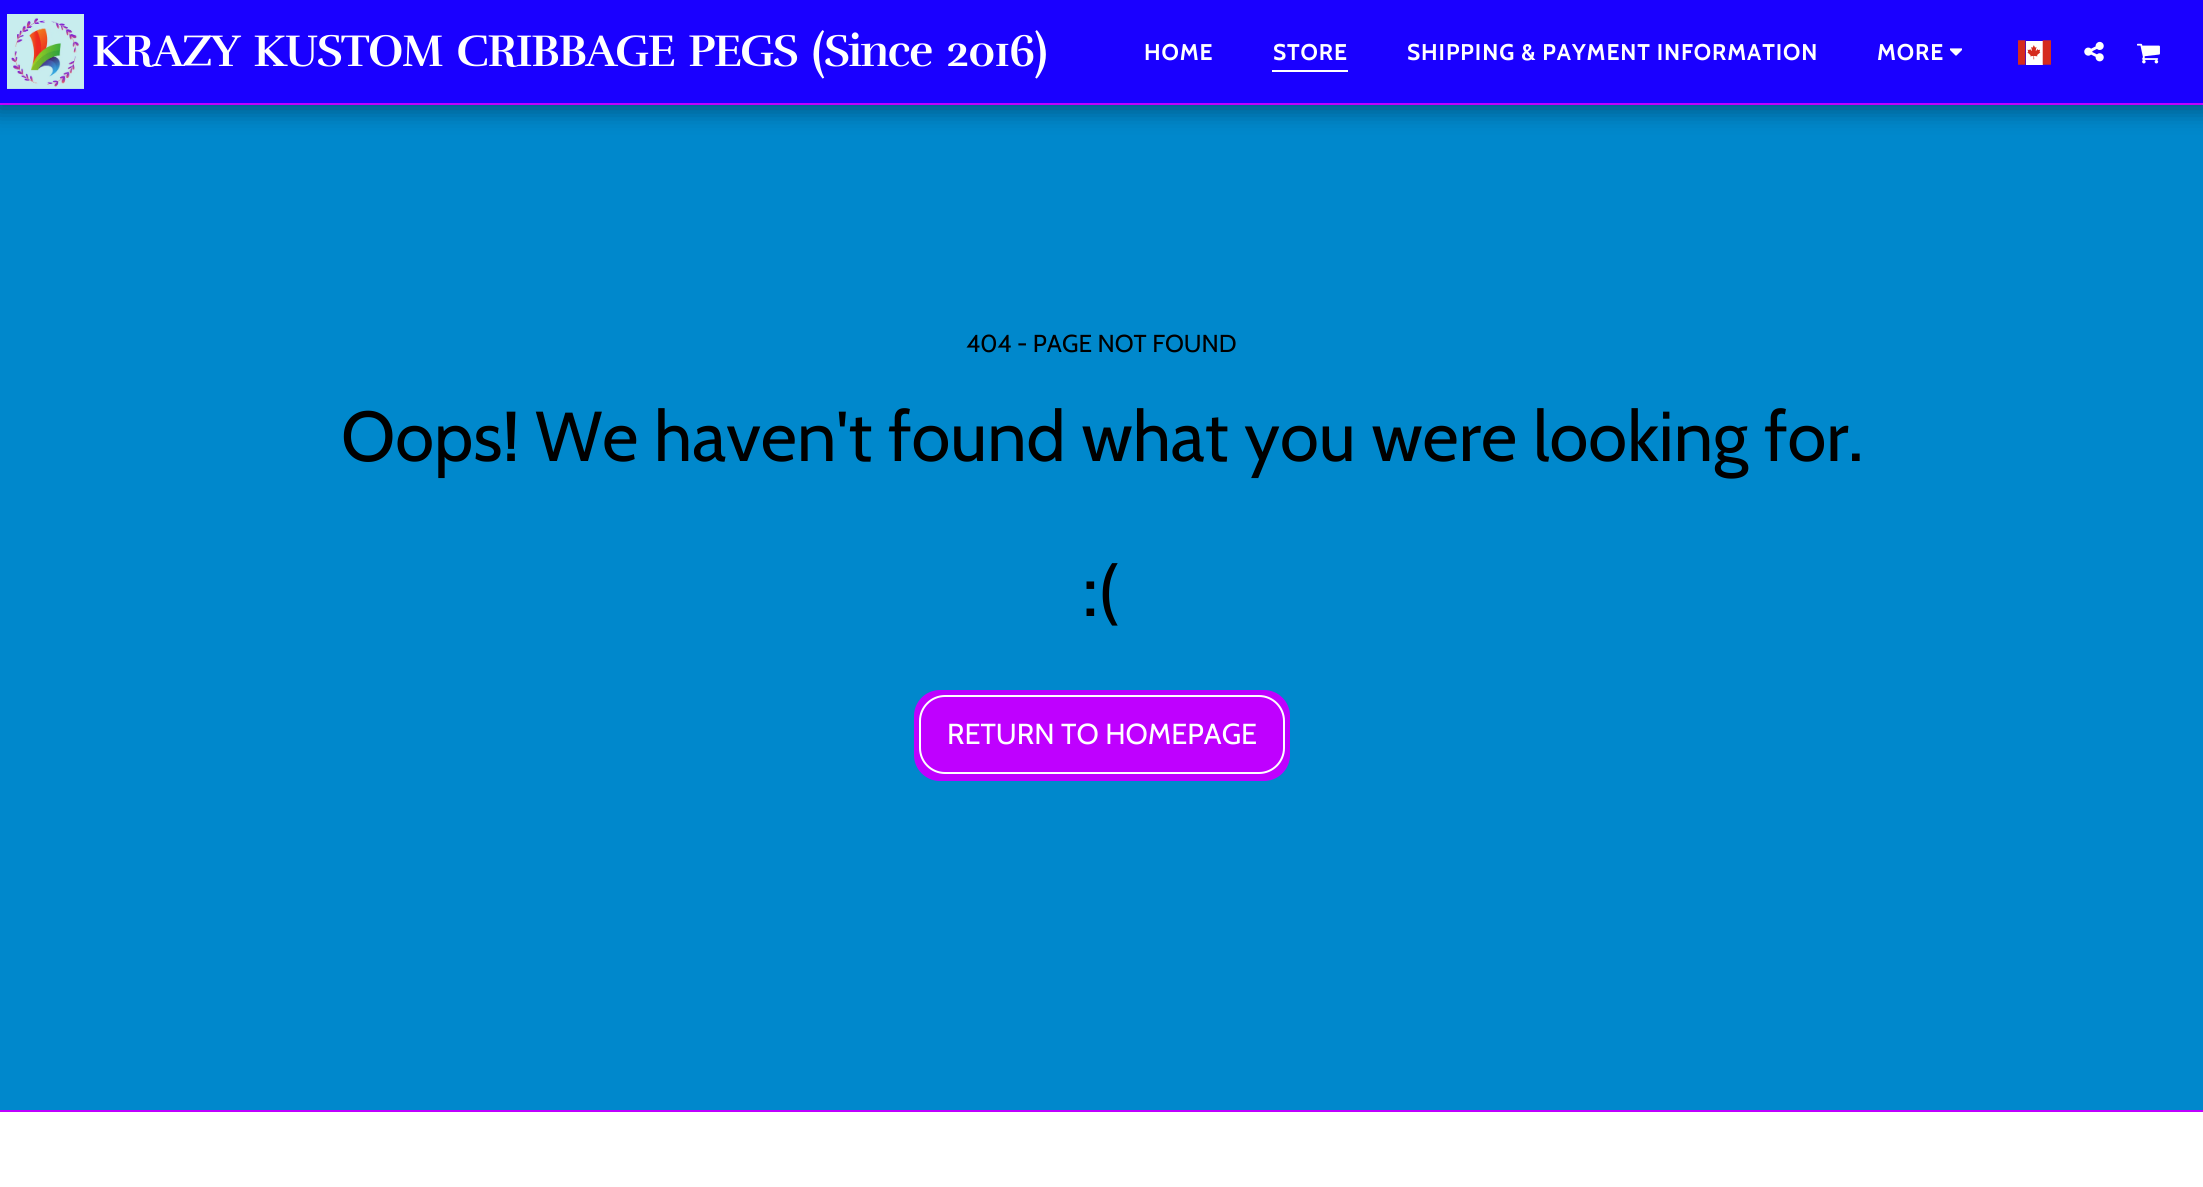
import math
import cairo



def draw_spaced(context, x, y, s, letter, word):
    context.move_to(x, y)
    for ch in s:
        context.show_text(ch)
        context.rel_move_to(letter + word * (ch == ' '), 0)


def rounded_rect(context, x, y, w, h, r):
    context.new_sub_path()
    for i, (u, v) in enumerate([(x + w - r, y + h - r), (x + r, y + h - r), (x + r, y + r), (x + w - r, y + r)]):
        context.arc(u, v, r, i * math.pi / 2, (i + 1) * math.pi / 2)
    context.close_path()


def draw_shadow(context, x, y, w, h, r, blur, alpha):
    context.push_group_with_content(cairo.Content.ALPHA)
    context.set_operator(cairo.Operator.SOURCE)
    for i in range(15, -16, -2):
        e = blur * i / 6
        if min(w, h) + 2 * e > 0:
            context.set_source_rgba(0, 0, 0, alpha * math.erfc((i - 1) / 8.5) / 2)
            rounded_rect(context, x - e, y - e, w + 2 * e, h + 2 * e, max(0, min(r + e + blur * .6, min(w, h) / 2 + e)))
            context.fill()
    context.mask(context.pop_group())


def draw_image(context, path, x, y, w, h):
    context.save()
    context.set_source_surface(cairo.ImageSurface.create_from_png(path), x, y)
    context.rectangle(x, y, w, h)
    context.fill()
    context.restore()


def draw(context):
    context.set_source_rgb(0, 136 / 255, 204 / 255)
    context.paint()
    context.set_source_rgb(0, 0, 0)
    draw_shadow(context, -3, 0, 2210, 112, 0, 10.5, 0.35)
    context.set_source_rgb(26 / 255, 0, 1)
    context.rectangle(0, 0, 2203, 103)
    context.fill()
    context.set_source_rgb(191 / 255, 0, 1)
    context.rectangle(0, 103, 2203, 2)
    context.fill()
    draw_image(context, "images/1.png", 7, 14, 77, 75)
    context.set_source_rgb(1, 1, 1)
    context.rectangle(1272, 70, 76, 2)
    context.fill()
    draw_image(context, "images/2.png", 1950, 48, 12, 8)
    draw_image(context, "images/3.png", 2018, 40, 33, 25)
    draw_image(context, "images/4.png", 2084, 41, 20, 21)
    draw_image(context, "images/5.png", 2137, 43, 23, 21)
    context.set_source_rgb(191 / 255, 0, 1)
    rounded_rect(context, 915, 691, 374, 89, 25)
    context.fill_preserve()
    context.stroke()
    rounded_rect(context, 920, 696, 364, 77, 25)
    context.set_source_rgb(1, 1, 1)
    context.stroke()
    context.rectangle(0, 1112, 2203, 75)
    context.fill()
    context.set_source_rgb(191 / 255, 0, 1)
    context.rectangle(0, 1110, 2203, 2)
    context.fill()
    context.select_font_face("Rufina", cairo.FontSlant.NORMAL, cairo.FontWeight.BOLD)
    context.set_font_size(45.5)
    context.set_source_rgb(1, 1, 1)
    draw_spaced(context, 92, 66, "KRAZY KUSTOM CRIBBAGE PEGS", -1.75, 5)
    draw_spaced(context, 812, 66, "(Since 2016)", -1.75, 5)
    context.select_font_face("Cabin", cairo.FontSlant.NORMAL, cairo.FontWeight.BOLD)
    context.set_font_size(22.75)
    draw_spaced(context, 1144, 60, "HOME", 0.9, 0)
    draw_spaced(context, 1273, 60, "STORE", 0.9, 0)
    draw_spaced(context, 1407, 60, "SHIPPING & PAYMENT INFORMATION", 0.9, 0)
    draw_spaced(context, 1877, 60, "MORE", 0.9, 0)
    context.select_font_face("Cabin")
    context.set_font_size(24.5)
    context.set_source_rgb(0, 0, 0)
    context.move_to(966, 352)
    context.show_text("404 - PAGE NOT FOUND")
    context.set_font_size(70.5)
    context.move_to(341, 461)
    context.show_text("Oops! We haven't found what you were looking for.")
    context.move_to(1083, 616)
    context.show_text(":(")
    context.set_font_size(28.9)
    context.set_source_rgb(1, 1, 1)
    context.move_to(947, 744)
    context.show_text("RETURN TO HOMEPAGE")


surface = cairo.ImageSurface(cairo.Format.RGB24, 2203, 1187)
context = cairo.Context(surface)
options = cairo.FontOptions()
options.set_hint_metrics(cairo.HintMetrics.OFF)
options.set_hint_style(cairo.HintStyle.NONE)
context.set_font_options(options)
context.set_miter_limit(4)
draw(context)
surface.write_to_png("out.png")
